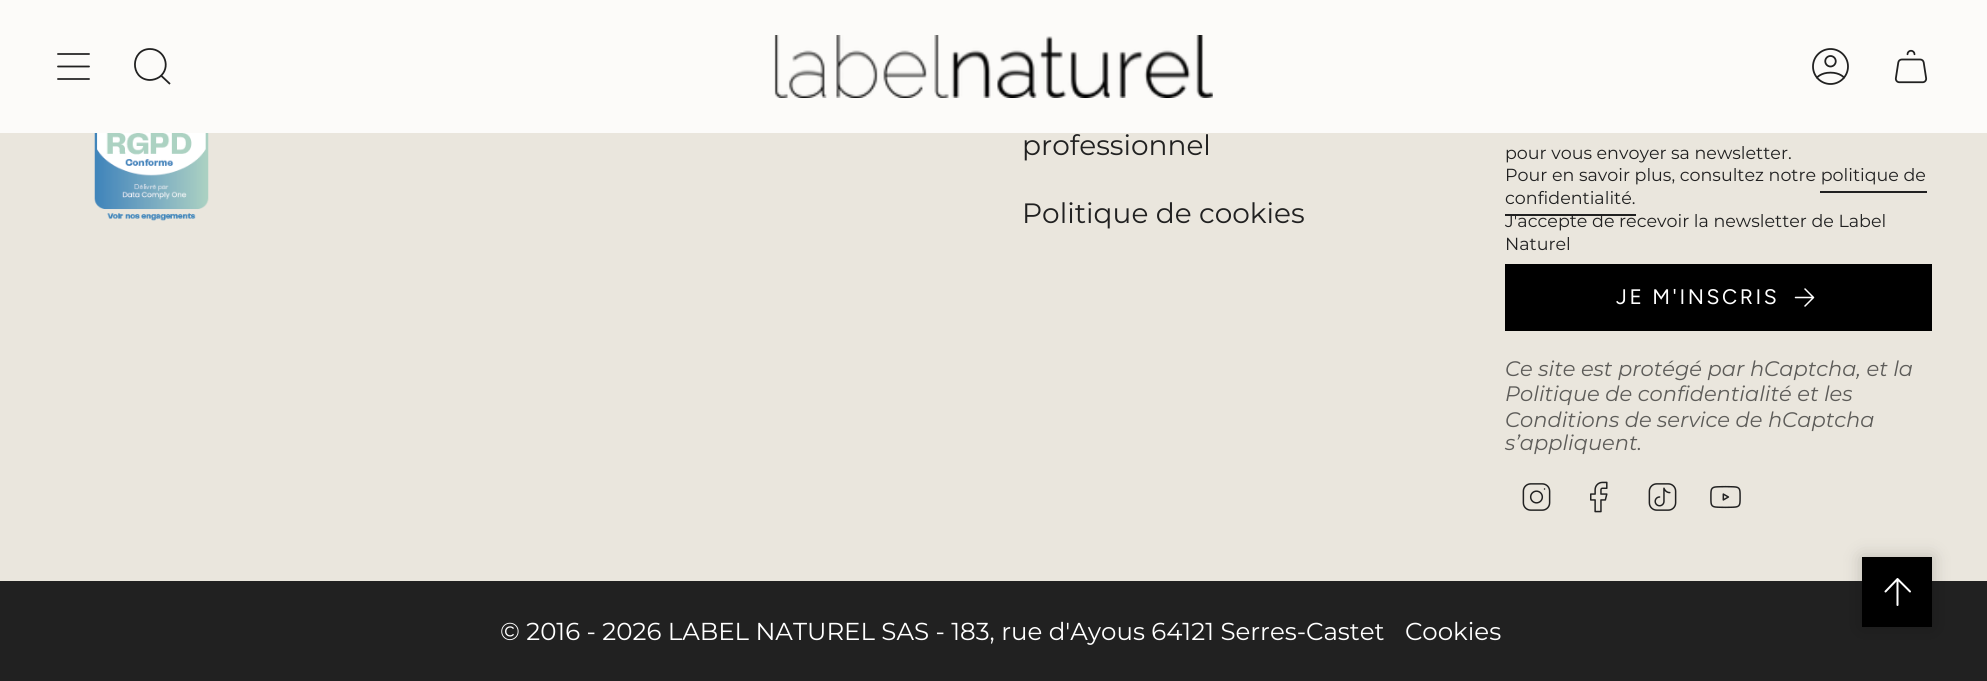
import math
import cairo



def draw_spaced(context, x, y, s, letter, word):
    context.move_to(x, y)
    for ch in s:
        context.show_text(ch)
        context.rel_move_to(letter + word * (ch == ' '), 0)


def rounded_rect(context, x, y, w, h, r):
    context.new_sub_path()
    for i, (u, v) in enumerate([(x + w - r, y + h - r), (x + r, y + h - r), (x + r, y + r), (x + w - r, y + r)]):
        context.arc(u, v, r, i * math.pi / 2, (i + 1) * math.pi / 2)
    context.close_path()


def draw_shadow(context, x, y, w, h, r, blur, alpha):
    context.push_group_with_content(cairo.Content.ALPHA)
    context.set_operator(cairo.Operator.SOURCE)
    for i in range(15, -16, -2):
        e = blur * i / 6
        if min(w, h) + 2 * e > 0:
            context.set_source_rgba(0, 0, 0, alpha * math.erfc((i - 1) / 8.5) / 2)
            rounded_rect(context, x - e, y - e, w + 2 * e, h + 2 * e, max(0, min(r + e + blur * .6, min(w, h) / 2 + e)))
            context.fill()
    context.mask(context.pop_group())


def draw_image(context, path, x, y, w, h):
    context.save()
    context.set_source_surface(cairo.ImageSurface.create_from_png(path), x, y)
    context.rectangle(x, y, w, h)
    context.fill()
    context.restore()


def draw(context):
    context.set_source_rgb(234 / 255, 230 / 255, 221 / 255)
    context.paint()
    context.set_source_rgb(252 / 255, 251 / 255, 249 / 255)
    context.rectangle(0, 0, 1987, 133)
    context.fill()
    context.new_path()
    context.move_to(58, 54)
    context.line_to(89, 54)
    context.move_to(58, 66.5)
    context.line_to(89, 66.5)
    context.move_to(58, 79)
    context.line_to(89, 79)
    context.set_source_rgb(33 / 255, 33 / 255, 33 / 255)
    context.set_line_width(1.8)
    context.set_line_cap(cairo.LineCap.ROUND)
    context.set_line_join(cairo.LineJoin.ROUND)
    context.stroke()
    context.new_path()
    context.move_to(150, 49)
    context.curve_to(165, 49, 171.5, 68, 159.5, 77)
    context.curve_to(156.5, 79, 153, 80, 149.5, 80)
    context.curve_to(129.5, 79, 130.5, 49, 150, 49)
    context.close_path()
    context.move_to(161, 75.5)
    context.line_to(170, 84)
    context.set_line_cap(cairo.LineCap.BUTT)
    context.set_line_join(cairo.LineJoin.MITER)
    context.stroke()
    draw_image(context, "images/1.png", 774, 35, 439, 63)
    draw_image(context, "images/2.png", 1812, 48, 37, 37)
    draw_image(context, "images/3.png", 1894, 49, 34, 35)
    draw_image(context, "images/4.png", 94, 133, 115, 88)
    context.rectangle(1820, 191, 107, 2)
    context.fill()
    context.rectangle(1505, 214, 131, 2)
    context.fill()
    context.set_source_rgb(0, 0, 0)
    context.rectangle(1505, 264, 427, 67)
    context.fill()
    context.new_path()
    context.move_to(1795.5, 297.5)
    context.line_to(1813.5, 297.5)
    context.move_to(1813.5, 297.5)
    context.line_to(1805, 289)
    context.move_to(1813.5, 297.5)
    context.line_to(1805, 306)
    context.set_source_rgb(1, 1, 1)
    context.set_line_width(1.5)
    context.set_line_cap(cairo.LineCap.ROUND)
    context.set_line_join(cairo.LineJoin.ROUND)
    context.stroke()
    draw_image(context, "images/5.png", 1522, 483, 29, 28)
    draw_image(context, "images/6.png", 1590, 481, 18, 32)
    draw_image(context, "images/7.png", 1648, 483, 29, 28)
    draw_image(context, "images/8.png", 1710, 485, 31, 24)
    context.set_source_rgb(33 / 255, 33 / 255, 33 / 255)
    context.rectangle(0, 581, 1987, 100)
    context.fill()
    context.set_source_rgb(0, 0, 0)
    draw_shadow(context, 1862, 557, 70, 70, 0, 9, 0.2)
    context.set_source_rgb(0, 0, 0)
    context.rectangle(1862, 557, 70, 70)
    context.fill()
    context.new_path()
    context.move_to(1897.5, 605)
    context.line_to(1897.5, 579)
    context.move_to(1897.5, 579)
    context.line_to(1910, 591.5)
    context.move_to(1897.5, 579)
    context.line_to(1885.5, 591.5)
    context.set_source_rgb(1, 1, 1)
    context.set_line_width(2)
    context.stroke()
    context.select_font_face("Montserrat")
    context.set_font_size(28)
    context.set_source_rgb(33 / 255, 33 / 255, 33 / 255)
    context.move_to(1022, 155)
    context.show_text("professionnel")
    context.move_to(1022, 223)
    context.show_text("Politique de cookies")
    context.set_font_size(17.5)
    context.move_to(1505, 159)
    context.show_text("pour vous envoyer sa newsletter.")
    context.move_to(1505, 181)
    context.show_text("Pour en savoir plus, consultez notre politique de")
    context.move_to(1505, 204)
    context.show_text("confidentialité.")
    context.move_to(1505, 227)
    context.show_text("J'accepte de recevoir la newsletter de Label")
    context.move_to(1505, 250)
    context.show_text("Naturel")
    context.select_font_face("Figtree")
    context.set_font_size(21)
    context.set_source_rgb(1, 1, 1)
    draw_spaced(context, 1616, 304, "JE M'INSCRIS", 2.6, 0)
    context.select_font_face("Montserrat", cairo.FontSlant.ITALIC)
    context.set_source_rgb(93 / 255, 92 / 255, 89 / 255)
    context.move_to(1505, 376)
    context.show_text("Ce site est protégé par hCaptcha, et la")
    context.move_to(1505, 401)
    context.show_text("Politique de confidentialité et les")
    context.move_to(1505, 427)
    context.show_text("Conditions de service de hCaptcha")
    context.move_to(1505, 450)
    context.show_text("s’appliquent.")
    context.select_font_face("Montserrat")
    context.set_font_size(24.5)
    context.set_source_rgb(1, 1, 1)
    context.move_to(500, 640)
    context.show_text("© 2016 - 2026 LABEL NATUREL SAS - 183, rue d'Ayous 64121 Serres-Castet")
    context.move_to(1405, 640)
    context.show_text("Cookies")


surface = cairo.ImageSurface(cairo.Format.RGB24, 1987, 681)
context = cairo.Context(surface)
options = cairo.FontOptions()
options.set_hint_metrics(cairo.HintMetrics.OFF)
options.set_hint_style(cairo.HintStyle.NONE)
context.set_font_options(options)
context.set_miter_limit(4)
draw(context)
surface.write_to_png("out.png")
